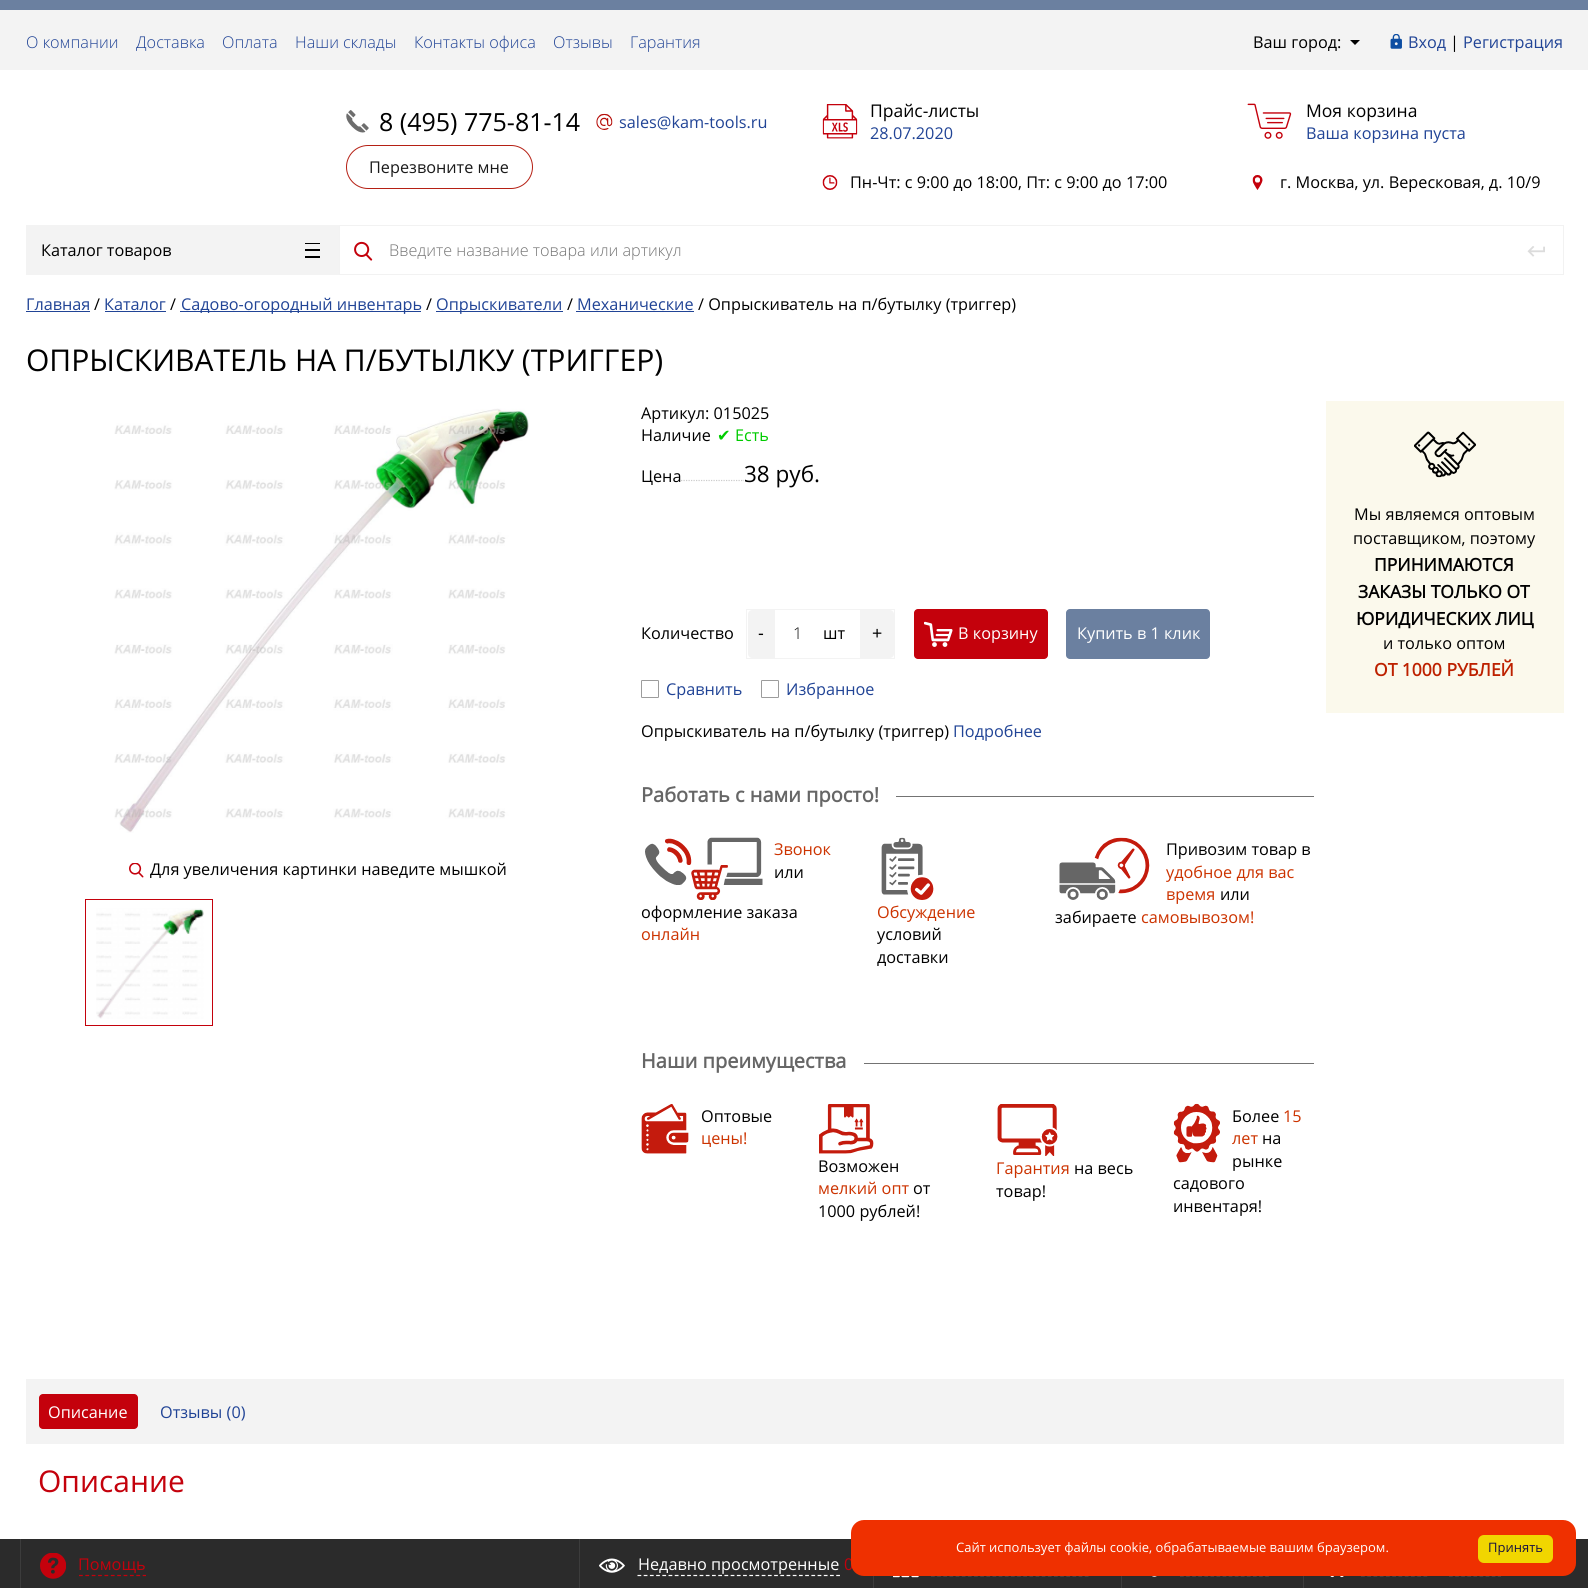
import math
import cairo



def rounded_rect(context, x, y, w, h, r):
    context.new_sub_path()
    for i, (u, v) in enumerate([(x + w - r, y + h - r), (x + r, y + h - r), (x + r, y + r), (x + w - r, y + r)]):
        context.arc(u, v, r, i * math.pi / 2, (i + 1) * math.pi / 2)
    context.close_path()


def draw_image(context, path, x, y, w, h):
    context.save()
    context.set_source_surface(cairo.ImageSurface.create_from_png(path), x, y)
    context.rectangle(x, y, w, h)
    context.fill()
    context.restore()


def draw(context):
    context.set_source_rgb(1, 1, 1)
    context.paint()
    context.set_source_rgb(107 / 255, 128 / 255, 160 / 255)
    context.rectangle(0, 0, 1588, 10)
    context.fill()
    context.set_source_rgb(243 / 255, 243 / 255, 243 / 255)
    context.rectangle(0, 10, 1588, 60)
    context.fill()
    context.set_source_rgb(0, 0, 0)
    context.set_fill_rule(cairo.FillRule.EVEN_ODD)
    context.new_path()
    context.move_to(1350, 40)
    context.line_to(1355, 45)
    context.line_to(1360, 40)
    context.close_path()
    context.fill()
    draw_image(context, "images/1.png", 1390, 34, 12, 15)
    draw_image(context, "images/2.png", 346, 110, 23, 23)
    draw_image(context, "images/3.png", 596, 113, 17, 17)
    draw_image(context, "images/4.png", 822, 104, 36, 35)
    draw_image(context, "images/5.png", 1247, 103, 45, 36)
    rounded_rect(context, 346.5, 145.5, 186, 43, 21.5)
    context.set_source_rgb(181 / 255, 32 / 255, 20 / 255)
    context.set_line_width(1)
    context.stroke()
    draw_image(context, "images/6.png", 822, 175, 16, 15)
    draw_image(context, "images/7.png", 1252, 175, 11, 15)
    context.set_source_rgb(243 / 255, 243 / 255, 243 / 255)
    context.rectangle(26, 225, 313, 50)
    context.fill()
    context.set_source_rgb(0, 0, 0)
    context.rectangle(305, 243, 15, 1)
    context.fill()
    context.rectangle(305, 249, 15, 2)
    context.fill()
    context.rectangle(305, 256, 15, 2)
    context.fill()
    context.rectangle(339.5, 225.5, 1224, 49)
    context.set_source_rgb(242 / 255, 242 / 255, 242 / 255)
    context.stroke()
    draw_image(context, "images/8.png", 354, 241, 19, 20)
    draw_image(context, "images/9.png", 1527, 246, 18, 11)
    context.set_source_rgb(33 / 255, 68 / 255, 150 / 255)
    context.rectangle(26, 311, 64, 1)
    context.fill()
    context.rectangle(105, 311, 61, 1)
    context.fill()
    context.rectangle(180, 311, 241, 1)
    context.fill()
    context.rectangle(436, 311, 127, 1)
    context.fill()
    context.rectangle(576, 311, 118, 1)
    context.fill()
    draw_image(context, "images/10.png", 114, 408, 416, 425)
    draw_image(context, "images/11.png", 129, 863, 15, 15)
    context.rectangle(85.5, 899.5, 127, 126)
    context.set_source_rgb(196 / 255, 1 / 255, 12 / 255)
    context.stroke()
    draw_image(context, "images/12.png", 96, 908, 108, 111)
    context.new_path()
    context.move_to(641, 480.5)
    context.line_to(744, 480.5)
    context.set_source_rgb(204 / 255, 204 / 255, 204 / 255)
    context.set_line_width(1.2)
    context.set_dash([1.25, 1.25])
    context.stroke()
    context.set_source_rgb(1, 1, 1)
    context.rectangle(641, 479, 39, 3)
    context.fill()
    context.rectangle(746.5, 609.5, 148, 49)
    context.set_source_rgb(243 / 255, 243 / 255, 243 / 255)
    context.set_line_width(1)
    context.set_dash([])
    context.stroke()
    context.new_path()
    context.move_to(752, 610)
    context.line_to(775, 610)
    context.line_to(775, 658)
    context.line_to(752, 658)
    context.curve_to(750, 658, 748, 656, 748, 654)
    context.line_to(748, 614)
    context.curve_to(748, 612, 750, 610, 752, 610)
    context.close_path()
    context.fill()
    context.new_path()
    context.move_to(860, 610)
    context.line_to(890, 610)
    context.curve_to(892, 610, 894, 612, 894, 614)
    context.line_to(894, 654)
    context.curve_to(894, 656, 892, 658, 890, 658)
    context.line_to(860, 658)
    context.close_path()
    context.fill()
    context.set_source_rgb(196 / 255, 1 / 255, 12 / 255)
    rounded_rect(context, 914, 609, 134, 50, 4)
    context.fill()
    draw_image(context, "images/13.png", 924, 621, 29, 26)
    context.set_source_rgb(107 / 255, 128 / 255, 160 / 255)
    rounded_rect(context, 1066, 609, 144, 50, 4)
    context.fill()
    context.set_source_rgb(251 / 255, 249 / 255, 236 / 255)
    context.rectangle(1326, 401, 238, 312)
    context.fill()
    draw_image(context, "images/14.png", 1414, 431, 62, 47)
    rounded_rect(context, 641.5, 680.5, 17, 17, 0.5)
    context.set_source_rgb(156 / 255, 156 / 255, 156 / 255)
    context.stroke()
    rounded_rect(context, 761.5, 680.5, 17, 17, 0.5)
    context.stroke()
    context.set_source_rgb(115 / 255, 115 / 255, 115 / 255)
    context.rectangle(896, 796, 418, 1)
    context.fill()
    draw_image(context, "images/15.png", 645, 837, 118, 63)
    draw_image(context, "images/16.png", 1059, 837, 91, 63)
    draw_image(context, "images/17.png", 881, 837, 53, 63)
    context.rectangle(864, 1063, 450, 1)
    context.fill()
    draw_image(context, "images/18.png", 641, 1104, 48, 50)
    draw_image(context, "images/19.png", 819, 1104, 55, 50)
    draw_image(context, "images/20.png", 997, 1104, 61, 52)
    draw_image(context, "images/21.png", 1173, 1103, 47, 60)
    context.set_source_rgb(243 / 255, 243 / 255, 243 / 255)
    context.rectangle(26, 1379, 1538, 65)
    context.fill()
    context.set_source_rgb(196 / 255, 1 / 255, 12 / 255)
    rounded_rect(context, 39, 1394, 99, 35, 4)
    context.fill()
    context.set_source_rgb(43 / 255, 43 / 255, 43 / 255)
    context.rectangle(0, 1539, 1588, 49)
    context.fill()
    context.set_source_rgb(60 / 255, 60 / 255, 60 / 255)
    context.rectangle(20, 1539, 1, 49)
    context.fill()
    draw_image(context, "images/22.png", 40, 1553, 26, 26)
    context.new_path()
    context.move_to(79, 1575.5)
    context.line_to(146, 1575.5)
    context.set_source_rgb(196 / 255, 1 / 255, 12 / 255)
    context.set_line_width(1.2)
    context.set_dash([3.75, 2.62])
    context.stroke()
    context.set_source_rgb(60 / 255, 60 / 255, 60 / 255)
    context.rectangle(579, 1539, 1, 49)
    context.fill()
    draw_image(context, "images/23.png", 599, 1558, 26, 15)
    context.new_path()
    context.move_to(637.5, 1575.5)
    context.line_to(840, 1575.5)
    context.set_source_rgb(1, 1, 1)
    context.set_dash([3.75, 2.46])
    context.stroke()
    context.set_source_rgb(60 / 255, 60 / 255, 60 / 255)
    context.rectangle(873, 1576, 1, 12)
    context.fill()
    draw_image(context, "images/24.png", 893, 1576, 26, 2)
    context.new_path()
    context.move_to(931, 1575.5)
    context.line_to(1089, 1575.5)
    context.set_source_rgb(1, 1, 1)
    context.set_dash([3.75, 2.4])
    context.stroke()
    context.set_source_rgb(60 / 255, 60 / 255, 60 / 255)
    context.rectangle(1121, 1576, 1, 12)
    context.fill()
    draw_image(context, "images/25.png", 1152, 1576, 5, 1)
    context.new_path()
    context.move_to(1180, 1575.5)
    context.line_to(1269, 1575.5)
    context.set_source_rgb(1, 1, 1)
    context.set_dash([3.75, 2.33])
    context.stroke()
    context.set_source_rgb(60 / 255, 60 / 255, 60 / 255)
    context.rectangle(1303, 1576, 1, 12)
    context.fill()
    draw_image(context, "images/26.png", 1330, 1576, 14, 2)
    context.new_path()
    context.move_to(1361, 1575.5)
    context.line_to(1427.5, 1575.5)
    context.set_source_rgb(1, 1, 1)
    context.set_dash([3.75, 2.5])
    context.stroke()
    context.new_path()
    context.move_to(1449, 1575.5)
    context.line_to(1501, 1575.5)
    context.set_dash([3.75, 2.35])
    context.stroke()
    context.select_font_face("Open Sans Light")
    context.set_font_size(16.25)
    context.set_source_rgb(33 / 255, 68 / 255, 150 / 255)
    context.move_to(26, 48)
    context.show_text("О компании")
    context.move_to(136, 48)
    context.show_text("Доставка")
    context.move_to(222, 48)
    context.show_text("Оплата")
    context.move_to(295, 48)
    context.show_text("Наши склады")
    context.move_to(414, 48)
    context.show_text("Контакты офиса")
    context.move_to(553, 48)
    context.show_text("Отзывы")
    context.move_to(630, 48)
    context.show_text("Гарантия")
    context.select_font_face("Open Sans")
    context.set_source_rgb(0, 0, 0)
    context.move_to(1253, 48)
    context.show_text("Ваш город:")
    context.set_source_rgb(33 / 255, 68 / 255, 150 / 255)
    context.move_to(1408, 48)
    context.show_text("Вход")
    context.set_source_rgb(0, 0, 0)
    context.move_to(1450, 48)
    context.show_text("|")
    context.set_source_rgb(33 / 255, 68 / 255, 150 / 255)
    context.move_to(1463, 48)
    context.show_text("Регистрация")
    context.set_font_size(25)
    context.set_source_rgb(0, 0, 0)
    context.move_to(379, 131)
    context.show_text("8 (495) 775-81-14")
    context.set_font_size(16.25)
    context.set_source_rgb(33 / 255, 68 / 255, 150 / 255)
    context.move_to(619, 128)
    context.show_text("sales@kam-tools.ru")
    context.set_font_size(17.5)
    context.set_source_rgb(0, 0, 0)
    context.move_to(870, 117)
    context.show_text("Прайс-листы")
    context.set_font_size(16.25)
    context.set_source_rgb(33 / 255, 68 / 255, 150 / 255)
    context.move_to(870, 139)
    context.show_text("28.07.2020")
    context.set_font_size(17.5)
    context.set_source_rgb(0, 0, 0)
    context.move_to(1306, 117)
    context.show_text("Моя корзина")
    context.set_font_size(16.25)
    context.set_source_rgb(33 / 255, 68 / 255, 150 / 255)
    context.move_to(1306, 139)
    context.show_text("Ваша корзина пуста")
    context.set_source_rgb(26 / 255, 26 / 255, 26 / 255)
    context.move_to(369, 173)
    context.show_text("Перезвоните мне")
    context.set_source_rgb(0, 0, 0)
    context.move_to(850, 188)
    context.show_text("Пн-Чт: с 9:00 до 18:00, Пт: с 9:00 до 17:00")
    context.move_to(1280, 188)
    context.show_text("г. Москва, ул. Вересковая, д. 10/9")
    context.move_to(41, 256)
    context.show_text("Каталог товаров")
    context.select_font_face("Open Sans Light")
    context.set_source_rgb(117 / 255, 117 / 255, 117 / 255)
    context.move_to(389, 256)
    context.show_text("Введите название товара или артикул")
    context.select_font_face("Open Sans")
    context.set_source_rgb(33 / 255, 68 / 255, 150 / 255)
    context.move_to(26, 310)
    context.show_text("Главная")
    context.set_source_rgb(0, 0, 0)
    context.move_to(94, 310)
    context.show_text("/")
    context.set_source_rgb(33 / 255, 68 / 255, 150 / 255)
    context.move_to(104, 310)
    context.show_text("Каталог")
    context.set_source_rgb(0, 0, 0)
    context.move_to(170, 310)
    context.show_text("/")
    context.set_source_rgb(33 / 255, 68 / 255, 150 / 255)
    context.move_to(181, 310)
    context.show_text("Садово-огородный инвентарь")
    context.set_source_rgb(0, 0, 0)
    context.move_to(426, 310)
    context.show_text("/")
    context.set_source_rgb(33 / 255, 68 / 255, 150 / 255)
    context.move_to(436, 310)
    context.show_text("Опрыскиватели")
    context.set_source_rgb(0, 0, 0)
    context.move_to(567, 310)
    context.show_text("/")
    context.set_source_rgb(33 / 255, 68 / 255, 150 / 255)
    context.move_to(577, 310)
    context.show_text("Механические")
    context.set_source_rgb(0, 0, 0)
    context.move_to(698, 310)
    context.show_text("/ Опрыскиватель на п/бутылку (триггер)")
    context.set_font_size(30)
    context.move_to(26, 371)
    context.show_text("ОПРЫСКИВАТЕЛЬ НА П/БУТЫЛКУ (ТРИГГЕР)")
    context.set_font_size(16.25)
    context.move_to(150, 875)
    context.show_text("Для увеличения картинки наведите мышкой")
    context.move_to(641, 419)
    context.show_text("Артикул: 015025")
    context.move_to(641, 441)
    context.show_text("Наличие")
    context.select_font_face("DejaVu Sans")
    context.set_source_rgb(0, 204 / 255, 0)
    context.move_to(717, 441)
    context.show_text("✔")
    context.select_font_face("Open Sans")
    context.move_to(735, 441)
    context.show_text("Есть")
    context.set_source_rgb(0, 0, 0)
    context.move_to(641, 482)
    context.show_text("Цена")
    context.set_font_size(22.5)
    context.move_to(744, 482)
    context.show_text("38 руб.")
    context.set_font_size(16.25)
    context.move_to(641, 639)
    context.show_text("Количество")
    context.select_font_face("Liberation Sans")
    context.set_font_size(17.5)
    context.move_to(758, 639)
    context.show_text("-")
    context.select_font_face("Open Sans Light")
    context.set_font_size(16.25)
    context.move_to(793, 639)
    context.show_text("1")
    context.select_font_face("Open Sans")
    context.move_to(823, 639)
    context.show_text("шт")
    context.select_font_face("Liberation Sans")
    context.set_font_size(17.5)
    context.move_to(872, 639)
    context.show_text("+")
    context.select_font_face("Open Sans")
    context.set_font_size(16.25)
    context.set_source_rgb(1, 1, 1)
    context.move_to(958, 639)
    context.show_text("В корзину")
    context.move_to(1077, 639)
    context.show_text("Купить в 1 клик")
    context.set_source_rgb(0, 0, 0)
    context.move_to(1354, 520)
    context.show_text("Мы являемся оптовым")
    context.move_to(1353, 544)
    context.show_text("поставщиком, поэтому")
    context.select_font_face("Open Sans", cairo.FontSlant.NORMAL, cairo.FontWeight.BOLD)
    context.set_font_size(17.5)
    context.move_to(1374, 571)
    context.show_text("ПРИНИМАЮТСЯ")
    context.move_to(1358, 598)
    context.show_text("ЗАКАЗЫ ТОЛЬКО ОТ")
    context.move_to(1356, 625)
    context.show_text("ЮРИДИЧЕСКИХ ЛИЦ")
    context.select_font_face("Open Sans")
    context.set_font_size(16.25)
    context.move_to(1383, 649)
    context.show_text("и только оптом")
    context.select_font_face("Open Sans", cairo.FontSlant.NORMAL, cairo.FontWeight.BOLD)
    context.set_font_size(17.5)
    context.set_source_rgb(189 / 255, 33 / 255, 0)
    context.move_to(1374, 676)
    context.show_text("ОТ 1000 РУБЛЕЙ")
    context.select_font_face("Open Sans")
    context.set_font_size(16.25)
    context.set_source_rgb(33 / 255, 68 / 255, 150 / 255)
    context.move_to(666, 695)
    context.show_text("Сравнить")
    context.move_to(786, 695)
    context.show_text("Избранное")
    context.set_source_rgb(0, 0, 0)
    context.move_to(641, 737)
    context.show_text("Опрыскиватель на п/бутылку (триггер)")
    context.set_source_rgb(33 / 255, 68 / 255, 150 / 255)
    context.move_to(953, 737)
    context.show_text("Подробнее")
    context.select_font_face("Open Sans", cairo.FontSlant.NORMAL, cairo.FontWeight.BOLD)
    context.set_font_size(20)
    context.set_source_rgb(102 / 255, 102 / 255, 102 / 255)
    context.move_to(641, 802)
    context.show_text("Работать с нами просто!")
    context.select_font_face("Open Sans")
    context.set_font_size(16.25)
    context.set_source_rgb(204 / 255, 51 / 255, 0)
    context.move_to(774, 855)
    context.show_text("Звонок")
    context.set_source_rgb(0, 0, 0)
    context.move_to(774, 878)
    context.show_text("или")
    context.move_to(641, 918)
    context.show_text("оформление заказа")
    context.set_source_rgb(204 / 255, 51 / 255, 0)
    context.move_to(641, 940)
    context.show_text("онлайн")
    context.set_source_rgb(0, 0, 0)
    context.move_to(1166, 855)
    context.show_text("Привозим товар в")
    context.set_source_rgb(204 / 255, 51 / 255, 0)
    context.move_to(1166, 878)
    context.show_text("удобное для вас")
    context.move_to(1166, 900)
    context.show_text("время")
    context.set_source_rgb(0, 0, 0)
    context.move_to(1220, 900)
    context.show_text("или")
    context.move_to(1055, 923)
    context.show_text("забираете")
    context.set_source_rgb(204 / 255, 51 / 255, 0)
    context.move_to(1141, 923)
    context.show_text("самовывозом!")
    context.move_to(877, 918)
    context.show_text("Обсуждение")
    context.set_source_rgb(0, 0, 0)
    context.move_to(877, 940)
    context.show_text("условий")
    context.move_to(877, 963)
    context.show_text("доставки")
    context.select_font_face("Open Sans", cairo.FontSlant.NORMAL, cairo.FontWeight.BOLD)
    context.set_font_size(20)
    context.set_source_rgb(102 / 255, 102 / 255, 102 / 255)
    context.move_to(641, 1068)
    context.show_text("Наши преимущества")
    context.select_font_face("Open Sans")
    context.set_font_size(16.25)
    context.set_source_rgb(0, 0, 0)
    context.move_to(701, 1122)
    context.show_text("Оптовые")
    context.set_source_rgb(204 / 255, 51 / 255, 0)
    context.move_to(701, 1144)
    context.show_text("цены!")
    context.set_source_rgb(0, 0, 0)
    context.move_to(818, 1172)
    context.show_text("Возможен")
    context.set_source_rgb(204 / 255, 51 / 255, 0)
    context.move_to(818, 1194)
    context.show_text("мелкий опт")
    context.set_source_rgb(0, 0, 0)
    context.move_to(913, 1194)
    context.show_text("от")
    context.move_to(818, 1217)
    context.show_text("1000 рублей!")
    context.set_source_rgb(204 / 255, 51 / 255, 0)
    context.move_to(996, 1174)
    context.show_text("Гарантия")
    context.set_source_rgb(0, 0, 0)
    context.move_to(1074, 1174)
    context.show_text("на весь")
    context.move_to(996, 1197)
    context.show_text("товар!")
    context.move_to(1232, 1122)
    context.show_text("Более")
    context.set_source_rgb(204 / 255, 51 / 255, 0)
    context.move_to(1283, 1122)
    context.show_text("15")
    context.move_to(1232, 1144)
    context.show_text("лет")
    context.set_source_rgb(0, 0, 0)
    context.move_to(1262, 1144)
    context.show_text("на")
    context.move_to(1232, 1167)
    context.show_text("рынке")
    context.move_to(1173, 1189)
    context.show_text("садового")
    context.move_to(1173, 1212)
    context.show_text("инвентаря!")
    context.set_source_rgb(1, 1, 1)
    context.move_to(48, 1418)
    context.show_text("Описание")
    context.set_source_rgb(33 / 255, 68 / 255, 150 / 255)
    context.move_to(160, 1418)
    context.show_text("Отзывы (0)")
    context.set_font_size(30)
    context.set_source_rgb(196 / 255, 1 / 255, 12 / 255)
    context.move_to(38, 1492)
    context.show_text("Описание")
    context.set_font_size(16.25)
    context.move_to(78, 1570)
    context.show_text("Помощь")
    context.set_source_rgb(1, 1, 1)
    context.move_to(638, 1570)
    context.show_text("Недавно просмотренные")
    context.set_source_rgb(196 / 255, 1 / 255, 12 / 255)
    context.move_to(844, 1570)
    context.show_text("0")
    context.set_source_rgb(239 / 255, 48 / 255, 0)
    rounded_rect(context, 851, 1520, 725, 56, 13)
    context.fill()
    context.set_source_rgb(241 / 255, 214 / 255, 0)
    rounded_rect(context, 1478, 1535, 75, 28, 6)
    context.fill()
    context.set_font_size(13)
    context.set_source_rgb(23 / 255, 18 / 255, 65 / 255)
    context.move_to(1488, 1552)
    context.show_text("Принять")
    context.set_source_rgb(1, 1, 1)
    context.move_to(956, 1552)
    context.show_text("Сайт использует файлы cookie, обрабатываемые вашим браузером.")


surface = cairo.ImageSurface(cairo.Format.RGB24, 1588, 1588)
context = cairo.Context(surface)
options = cairo.FontOptions()
options.set_hint_metrics(cairo.HintMetrics.OFF)
options.set_hint_style(cairo.HintStyle.NONE)
context.set_font_options(options)
context.set_miter_limit(4)
draw(context)
surface.write_to_png("out.png")
